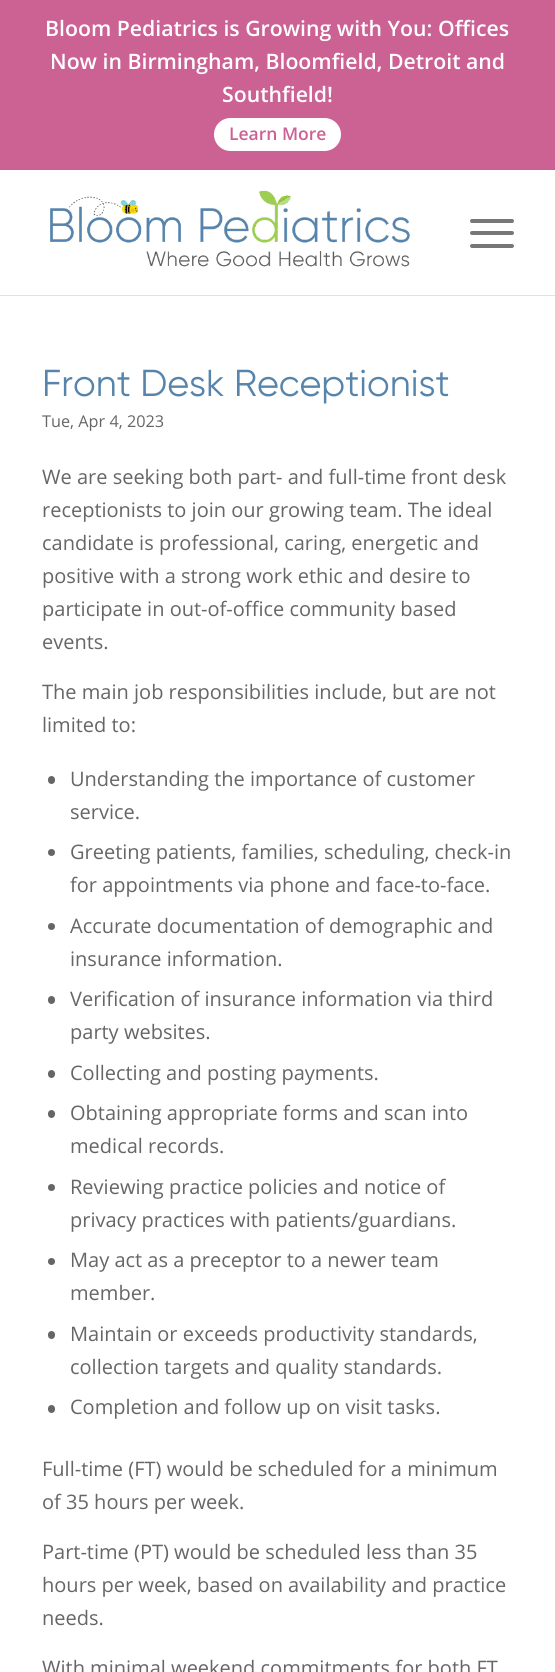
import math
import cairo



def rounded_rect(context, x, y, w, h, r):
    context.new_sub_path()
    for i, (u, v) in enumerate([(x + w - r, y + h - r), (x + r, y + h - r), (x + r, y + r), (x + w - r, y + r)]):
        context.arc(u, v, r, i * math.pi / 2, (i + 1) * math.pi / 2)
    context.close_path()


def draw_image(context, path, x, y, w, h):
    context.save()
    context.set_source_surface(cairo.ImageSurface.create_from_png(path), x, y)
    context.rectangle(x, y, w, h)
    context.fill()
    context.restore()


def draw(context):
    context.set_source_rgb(1, 1, 1)
    context.paint()
    context.set_source_rgb(204 / 255, 97 / 255, 148 / 255)
    context.rectangle(0, 0, 555, 170)
    context.fill()
    context.set_source_rgb(1, 1, 1)
    rounded_rect(context, 214, 118, 127, 33, 16.5)
    context.fill()
    context.set_source_rgb(225 / 255, 225 / 255, 225 / 255)
    context.rectangle(0, 295, 555, 1)
    context.fill()
    draw_image(context, "images/1.png", 49, 190, 361, 77)
    context.set_source_rgb(119 / 255, 119 / 255, 119 / 255)
    rounded_rect(context, 470, 231, 44, 4, 2)
    context.fill()
    rounded_rect(context, 470, 219, 44, 4, 2)
    context.fill()
    rounded_rect(context, 470, 244, 44, 4, 2)
    context.fill()
    context.set_source_rgb(102 / 255, 102 / 255, 102 / 255)
    rounded_rect(context, 48, 776, 7, 8, 3.5)
    context.fill()
    context.arc(51.5, 852.5, 3.5, 0, 2 * math.pi)
    context.fill()
    context.arc(51.5, 926.5, 3.5, 0, 2 * math.pi)
    context.fill()
    rounded_rect(context, 48, 996, 7, 8, 3.5)
    context.fill()
    rounded_rect(context, 48, 1070, 7, 8, 3.5)
    context.fill()
    rounded_rect(context, 48, 1110, 7, 8, 3.5)
    context.fill()
    context.arc(51.5, 1187.5, 3.5, 0, 2 * math.pi)
    context.fill()
    context.arc(51.5, 1261.5, 3.5, 0, 2 * math.pi)
    context.fill()
    rounded_rect(context, 48, 1331, 7, 8, 3.5)
    context.fill()
    rounded_rect(context, 48, 1405, 7, 8, 3.5)
    context.fill()
    context.select_font_face("Open Sans SemiBold")
    context.set_font_size(21.25)
    context.set_source_rgb(1, 1, 1)
    context.move_to(45, 36)
    context.show_text("Bloom Pediatrics is Growing with You: Offices")
    context.move_to(50, 69)
    context.show_text("Now in Birmingham, Bloomfield, Detroit and")
    context.move_to(222, 102)
    context.show_text("Southfield!")
    context.set_font_size(17.5)
    context.set_source_rgb(204 / 255, 97 / 255, 148 / 255)
    context.move_to(229, 140)
    context.show_text("Learn More")
    context.select_font_face("Gilroy")
    context.set_font_size(37.5)
    context.set_source_rgb(86 / 255, 132 / 255, 171 / 255)
    context.move_to(42, 396)
    context.show_text("Front Desk Receptionist")
    context.select_font_face("Open Sans")
    context.set_font_size(16.25)
    context.set_source_rgb(102 / 255, 102 / 255, 102 / 255)
    context.move_to(42, 427)
    context.show_text("Tue, Apr 4, 2023")
    context.set_font_size(20)
    context.move_to(42, 484)
    context.show_text("We are seeking both part- and full-time front desk")
    context.move_to(42, 517)
    context.show_text("receptionists to join our growing team. The ideal")
    context.move_to(42, 550)
    context.show_text("candidate is professional, caring, energetic and")
    context.move_to(42, 583)
    context.show_text("positive with a strong work ethic and desire to")
    context.move_to(42, 616)
    context.show_text("participate in out-of-office community based")
    context.move_to(42, 649)
    context.show_text("events.")
    context.move_to(42, 699)
    context.show_text("The main job responsibilities include, but are not")
    context.move_to(42, 732)
    context.show_text("limited to:")
    context.move_to(70, 786)
    context.show_text("Understanding the importance of customer")
    context.move_to(70, 819)
    context.show_text("service.")
    context.move_to(70, 859)
    context.show_text("Greeting patients, families, scheduling, check-in")
    context.move_to(70, 892)
    context.show_text("for appointments via phone and face-to-face.")
    context.move_to(70, 933)
    context.show_text("Accurate documentation of demographic and")
    context.move_to(70, 966)
    context.show_text("insurance information.")
    context.move_to(70, 1006)
    context.show_text("Verification of insurance information via third")
    context.move_to(70, 1039)
    context.show_text("party websites.")
    context.move_to(70, 1080)
    context.show_text("Collecting and posting payments.")
    context.move_to(70, 1120)
    context.show_text("Obtaining appropriate forms and scan into")
    context.move_to(70, 1153)
    context.show_text("medical records.")
    context.move_to(70, 1194)
    context.show_text("Reviewing practice policies and notice of")
    context.move_to(70, 1227)
    context.show_text("privacy practices with patients/guardians.")
    context.move_to(70, 1267)
    context.show_text("May act as a preceptor to a newer team")
    context.move_to(70, 1300)
    context.show_text("member.")
    context.move_to(70, 1341)
    context.show_text("Maintain or exceeds productivity standards,")
    context.move_to(70, 1374)
    context.show_text("collection targets and quality standards.")
    context.move_to(70, 1414)
    context.show_text("Completion and follow up on visit tasks.")
    context.move_to(42, 1476)
    context.show_text("Full-time (FT) would be scheduled for a minimum")
    context.move_to(42, 1509)
    context.show_text("of 35 hours per week.")
    context.move_to(42, 1559)
    context.show_text("Part-time (PT) would be scheduled less than 35")
    context.move_to(42, 1592)
    context.show_text("hours per week, based on availability and practice")
    context.move_to(42, 1625)
    context.show_text("needs.")
    context.move_to(42, 1675)
    context.show_text("With minimal weekend commitments for both FT")


surface = cairo.ImageSurface(cairo.Format.RGB24, 555, 1672)
context = cairo.Context(surface)
options = cairo.FontOptions()
options.set_hint_metrics(cairo.HintMetrics.OFF)
options.set_hint_style(cairo.HintStyle.NONE)
context.set_font_options(options)
context.set_miter_limit(4)
draw(context)
surface.write_to_png("out.png")
